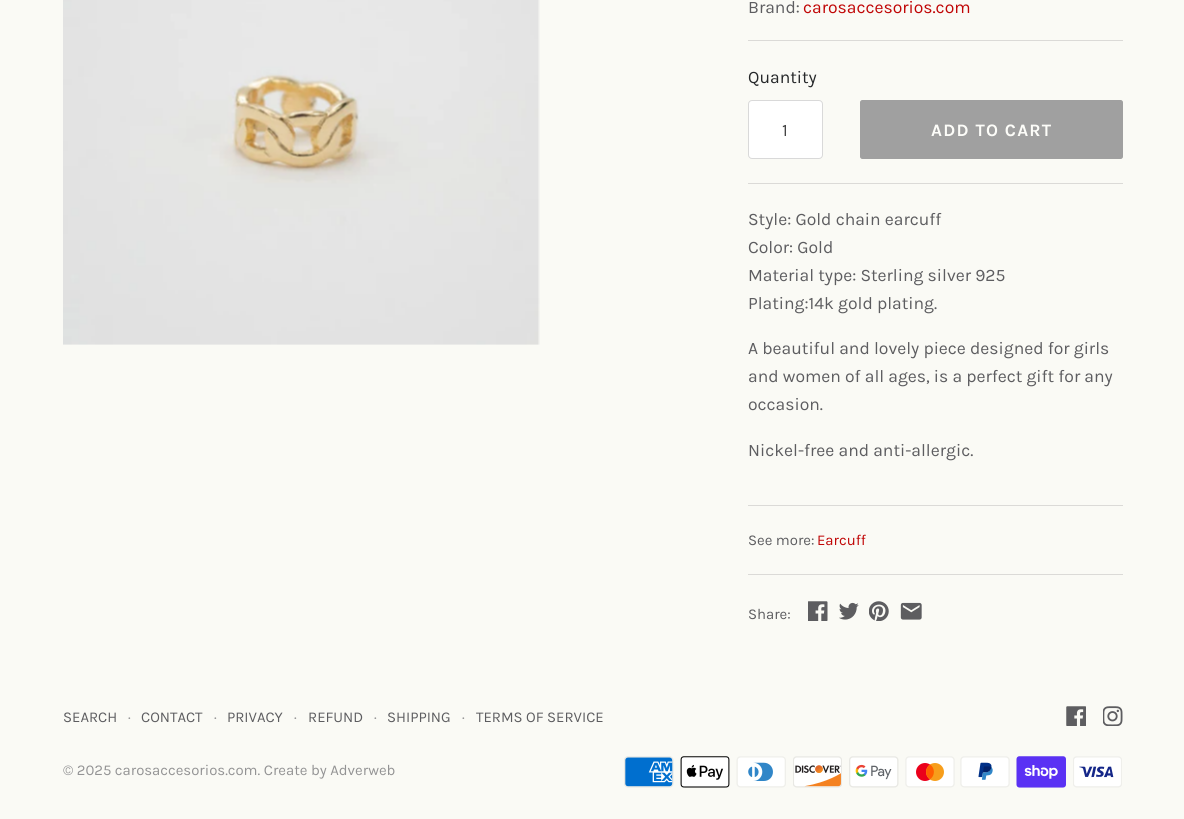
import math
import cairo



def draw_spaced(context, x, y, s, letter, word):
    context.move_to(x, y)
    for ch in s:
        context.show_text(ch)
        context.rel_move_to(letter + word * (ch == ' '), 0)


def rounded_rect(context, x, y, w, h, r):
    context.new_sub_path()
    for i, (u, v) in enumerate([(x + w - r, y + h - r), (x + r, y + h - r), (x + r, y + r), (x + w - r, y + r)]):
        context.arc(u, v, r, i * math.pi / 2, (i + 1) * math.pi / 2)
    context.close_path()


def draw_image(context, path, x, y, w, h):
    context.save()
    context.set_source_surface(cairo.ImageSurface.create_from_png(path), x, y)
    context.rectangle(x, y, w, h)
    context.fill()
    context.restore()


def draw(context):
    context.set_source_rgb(250 / 255, 250 / 255, 245 / 255)
    context.paint()
    draw_image(context, "images/1.png", 63, 0, 477, 345)
    context.set_source_rgb(219 / 255, 218 / 255, 215 / 255)
    context.rectangle(748, 40, 375, 1)
    context.fill()
    context.set_source_rgb(1, 1, 1)
    rounded_rect(context, 748, 100, 75, 59, 4)
    context.fill()
    rounded_rect(context, 748.5, 100.5, 74, 58, 3.5)
    context.set_source_rgba(0, 0, 0, 0.15)
    context.set_line_width(1)
    context.stroke()
    context.set_source_rgb(160 / 255, 160 / 255, 160 / 255)
    rounded_rect(context, 860.5, 100.5, 262, 58, 2)
    context.fill_preserve()
    context.stroke()
    context.set_source_rgb(219 / 255, 218 / 255, 215 / 255)
    context.rectangle(748, 183, 375, 1)
    context.fill()
    context.rectangle(748, 505, 375, 1)
    context.fill()
    context.rectangle(748, 574, 375, 1)
    context.fill()
    draw_image(context, "images/2.png", 808, 601, 20, 20)
    draw_image(context, "images/3.png", 839, 602, 20, 18)
    draw_image(context, "images/4.png", 869, 601, 20, 20)
    draw_image(context, "images/5.png", 900, 602, 22, 18)
    draw_image(context, "images/6.png", 1066, 706, 20, 20)
    draw_image(context, "images/7.png", 1103, 706, 20, 20)
    draw_image(context, "images/8.png", 624, 756, 50, 32)
    draw_image(context, "images/9.png", 680, 756, 50, 32)
    draw_image(context, "images/10.png", 736, 756, 50, 32)
    draw_image(context, "images/11.png", 793, 756, 49, 32)
    draw_image(context, "images/12.png", 849, 756, 50, 32)
    draw_image(context, "images/13.png", 905, 756, 50, 32)
    draw_image(context, "images/14.png", 960, 756, 50, 32)
    draw_image(context, "images/15.png", 1016, 756, 50, 32)
    draw_image(context, "images/16.png", 1073, 756, 49, 32)
    context.select_font_face("Karla")
    context.set_font_size(17.5)
    context.set_source_rgb(93 / 255, 93 / 255, 96 / 255)
    context.move_to(748, 13)
    context.show_text("Brand:")
    context.set_source_rgb(192 / 255, 5 / 255, 5 / 255)
    context.move_to(803, 13)
    context.show_text("carosaccesorios.com")
    context.set_source_rgb(37 / 255, 39 / 255, 41 / 255)
    context.move_to(748, 83)
    context.show_text("Quantity")
    context.set_source_rgb(68 / 255, 68 / 255, 68 / 255)
    context.move_to(782, 136)
    context.show_text("1")
    context.select_font_face("Karla", cairo.FontSlant.NORMAL, cairo.FontWeight.BOLD)
    context.set_source_rgb(253 / 255, 253 / 255, 249 / 255)
    draw_spaced(context, 931, 136, "ADD TO CART", 1.25, 0)
    context.select_font_face("Karla")
    context.set_source_rgb(93 / 255, 93 / 255, 96 / 255)
    context.move_to(748, 225)
    context.show_text("Style: Gold chain earcuff")
    context.move_to(748, 253)
    context.show_text("Color: Gold")
    context.move_to(748, 281)
    context.show_text("Material type: Sterling silver 925")
    context.move_to(748, 309)
    context.show_text("Plating:14k gold plating.")
    context.move_to(748, 354)
    context.show_text("A beautiful and lovely piece designed for girls")
    context.move_to(748, 382)
    context.show_text("and women of all ages, is a perfect gift for any")
    context.move_to(748, 410)
    context.show_text("occasion.")
    context.move_to(748, 456)
    context.show_text("Nickel-free and anti-allergic.")
    context.set_font_size(14.9)
    context.move_to(748, 545)
    context.show_text("See more:")
    context.set_source_rgb(192 / 255, 5 / 255, 5 / 255)
    context.move_to(817, 545)
    context.show_text("Earcuff")
    context.set_source_rgb(93 / 255, 93 / 255, 96 / 255)
    context.move_to(748, 619)
    context.show_text("Share:")
    context.move_to(63, 722)
    context.show_text("SEARCH")
    context.set_source_rgb(147 / 255, 147 / 255, 148 / 255)
    context.move_to(128, 722)
    context.show_text("·")
    context.set_source_rgb(93 / 255, 93 / 255, 96 / 255)
    context.move_to(141, 722)
    context.show_text("CONTACT")
    context.set_source_rgb(147 / 255, 147 / 255, 148 / 255)
    context.move_to(214, 722)
    context.show_text("·")
    context.set_source_rgb(93 / 255, 93 / 255, 96 / 255)
    context.move_to(227, 722)
    context.show_text("PRIVACY")
    context.set_source_rgb(147 / 255, 147 / 255, 148 / 255)
    context.move_to(294, 722)
    context.show_text("·")
    context.set_source_rgb(93 / 255, 93 / 255, 96 / 255)
    context.move_to(308, 722)
    context.show_text("REFUND")
    context.set_source_rgb(147 / 255, 147 / 255, 148 / 255)
    context.move_to(374, 722)
    context.show_text("·")
    context.set_source_rgb(93 / 255, 93 / 255, 96 / 255)
    context.move_to(387, 722)
    context.show_text("SHIPPING")
    context.set_source_rgb(147 / 255, 147 / 255, 148 / 255)
    context.move_to(462, 722)
    context.show_text("·")
    context.set_source_rgb(93 / 255, 93 / 255, 96 / 255)
    context.move_to(476, 722)
    context.show_text("TERMS OF SERVICE")
    context.set_source_rgb(147 / 255, 147 / 255, 148 / 255)
    context.move_to(63, 775)
    context.show_text("© 2025 carosaccesorios.com. Create by Adverweb")


surface = cairo.ImageSurface(cairo.Format.RGB24, 1184, 819)
context = cairo.Context(surface)
options = cairo.FontOptions()
options.set_hint_metrics(cairo.HintMetrics.OFF)
options.set_hint_style(cairo.HintStyle.NONE)
context.set_font_options(options)
context.set_miter_limit(4)
draw(context)
surface.write_to_png("out.png")
